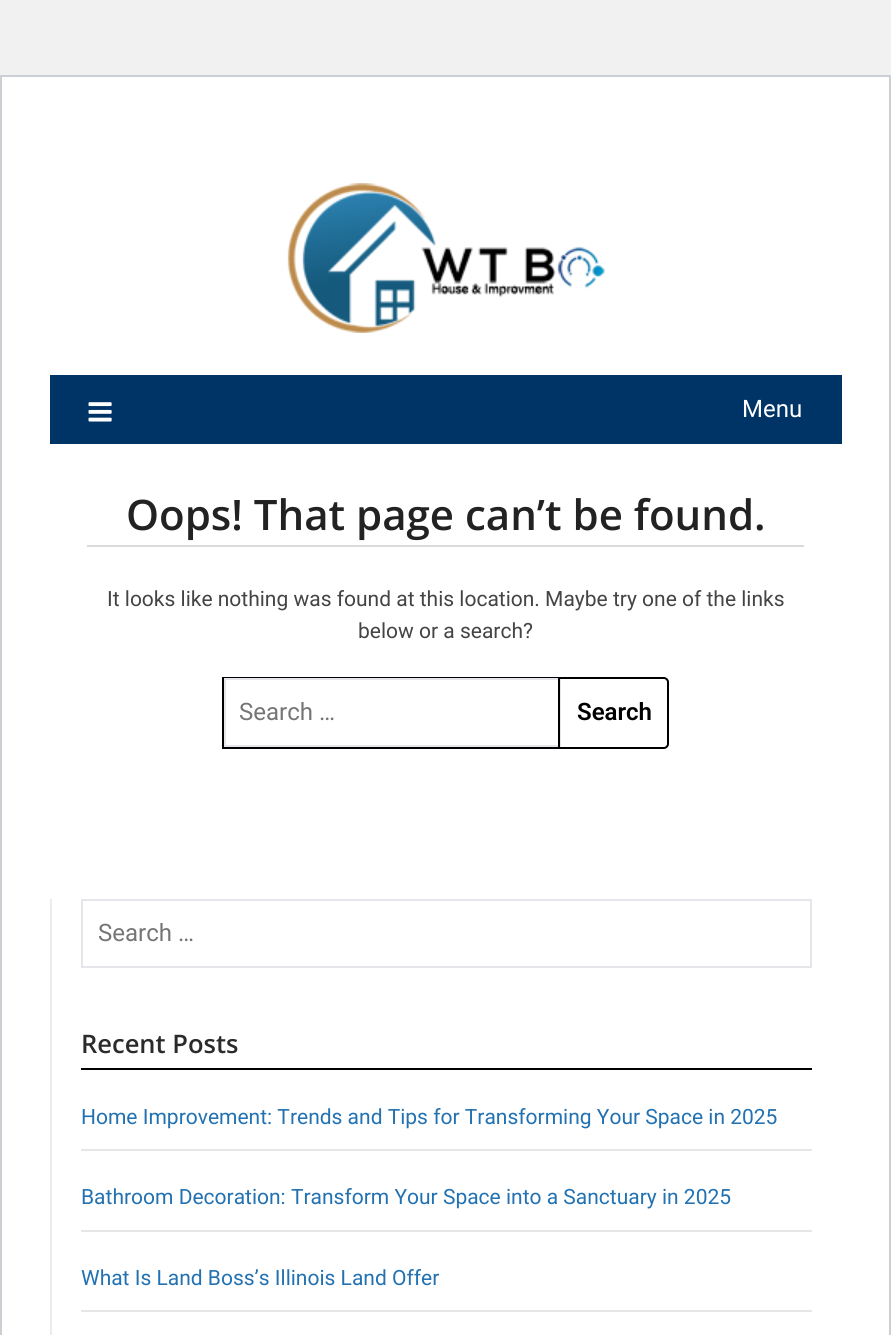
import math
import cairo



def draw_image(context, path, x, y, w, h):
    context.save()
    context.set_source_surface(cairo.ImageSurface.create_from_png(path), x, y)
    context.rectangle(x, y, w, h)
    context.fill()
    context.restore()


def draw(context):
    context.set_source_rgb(241 / 255, 241 / 255, 241 / 255)
    context.paint()
    context.set_source_rgb(1, 1, 1)
    context.rectangle(1, 76, 889, 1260)
    context.fill_preserve()
    context.set_source_rgb(204 / 255, 208 / 255, 212 / 255)
    context.stroke()
    draw_image(context, "images/1.png", 287, 183, 318, 150)
    context.set_source_rgb(0, 51 / 255, 102 / 255)
    context.rectangle(50, 375, 792, 69)
    context.fill()
    draw_image(context, "images/2.png", 88, 402, 24, 20)
    context.set_source_rgb(218 / 255, 218 / 255, 218 / 255)
    context.rectangle(87, 545, 717, 2)
    context.fill()
    context.set_source_rgb(0, 0, 0)
    context.rectangle(222, 677, 339, 1)
    context.fill()
    context.rectangle(222, 747, 339, 2)
    context.fill()
    context.rectangle(222, 677, 2, 72)
    context.fill()
    context.rectangle(225, 679, 335, 67)
    context.set_source_rgb(229 / 255, 230 / 255, 233 / 255)
    context.stroke()
    context.new_path()
    context.move_to(559, 678)
    context.line_to(664, 678)
    context.curve_to(666, 678, 668, 680, 668, 682)
    context.line_to(668, 744)
    context.curve_to(668, 746, 666, 748, 664, 748)
    context.line_to(559, 748)
    context.close_path()
    context.set_source_rgb(0, 0, 0)
    context.stroke()
    context.set_source_rgb(236 / 255, 236 / 255, 236 / 255)
    context.rectangle(50, 899, 2, 436)
    context.fill()
    context.rectangle(82, 900, 729, 67)
    context.set_source_rgb(229 / 255, 230 / 255, 233 / 255)
    context.stroke()
    context.set_source_rgb(0, 0, 0)
    context.rectangle(81, 1068, 731, 2)
    context.fill()
    context.set_source_rgb(230 / 255, 230 / 255, 230 / 255)
    context.rectangle(81, 1149, 731, 2)
    context.fill()
    context.rectangle(81, 1230, 731, 2)
    context.fill()
    context.rectangle(81, 1310, 731, 2)
    context.fill()
    context.select_font_face("Roboto")
    context.set_font_size(24)
    context.set_source_rgb(1, 1, 1)
    context.move_to(742, 417)
    context.show_text("Menu")
    context.select_font_face("Open Sans SemiBold")
    context.set_font_size(42)
    context.set_source_rgb(34 / 255, 34 / 255, 34 / 255)
    context.move_to(126, 530)
    context.show_text("Oops! That page can’t be found.")
    context.select_font_face("Roboto")
    context.set_font_size(21)
    context.set_source_rgb(68 / 255, 68 / 255, 68 / 255)
    context.move_to(107, 606)
    context.show_text("It looks like nothing was found at this location. Maybe try one of the links")
    context.move_to(358, 638)
    context.show_text("below or a search?")
    context.set_font_size(24)
    context.set_source_rgb(117 / 255, 117 / 255, 117 / 255)
    context.move_to(239, 720)
    context.show_text("Search …")
    context.select_font_face("Roboto SemiBold")
    context.set_source_rgb(0, 0, 0)
    context.move_to(577, 720)
    context.show_text("Search")
    context.select_font_face("Roboto")
    context.set_source_rgb(117 / 255, 117 / 255, 117 / 255)
    context.move_to(98, 941)
    context.show_text("Search …")
    context.select_font_face("Open Sans SemiBold")
    context.set_font_size(25.5)
    context.set_source_rgb(43 / 255, 43 / 255, 43 / 255)
    context.move_to(81, 1053)
    context.show_text("Recent Posts")
    context.select_font_face("Roboto")
    context.set_font_size(21)
    context.set_source_rgb(34 / 255, 113 / 255, 177 / 255)
    context.move_to(81, 1124)
    context.show_text("Home Improvement: Trends and Tips for Transforming Your Space in 2025")
    context.move_to(81, 1204)
    context.show_text("Bathroom Decoration: Transform Your Space into a Sanctuary in 2025")
    context.move_to(81, 1285)
    context.show_text("What Is Land Boss’s Illinois Land Offer")


surface = cairo.ImageSurface(cairo.Format.RGB24, 891, 1335)
context = cairo.Context(surface)
options = cairo.FontOptions()
options.set_hint_metrics(cairo.HintMetrics.OFF)
options.set_hint_style(cairo.HintStyle.NONE)
context.set_font_options(options)
context.set_miter_limit(4)
draw(context)
surface.write_to_png("out.png")
